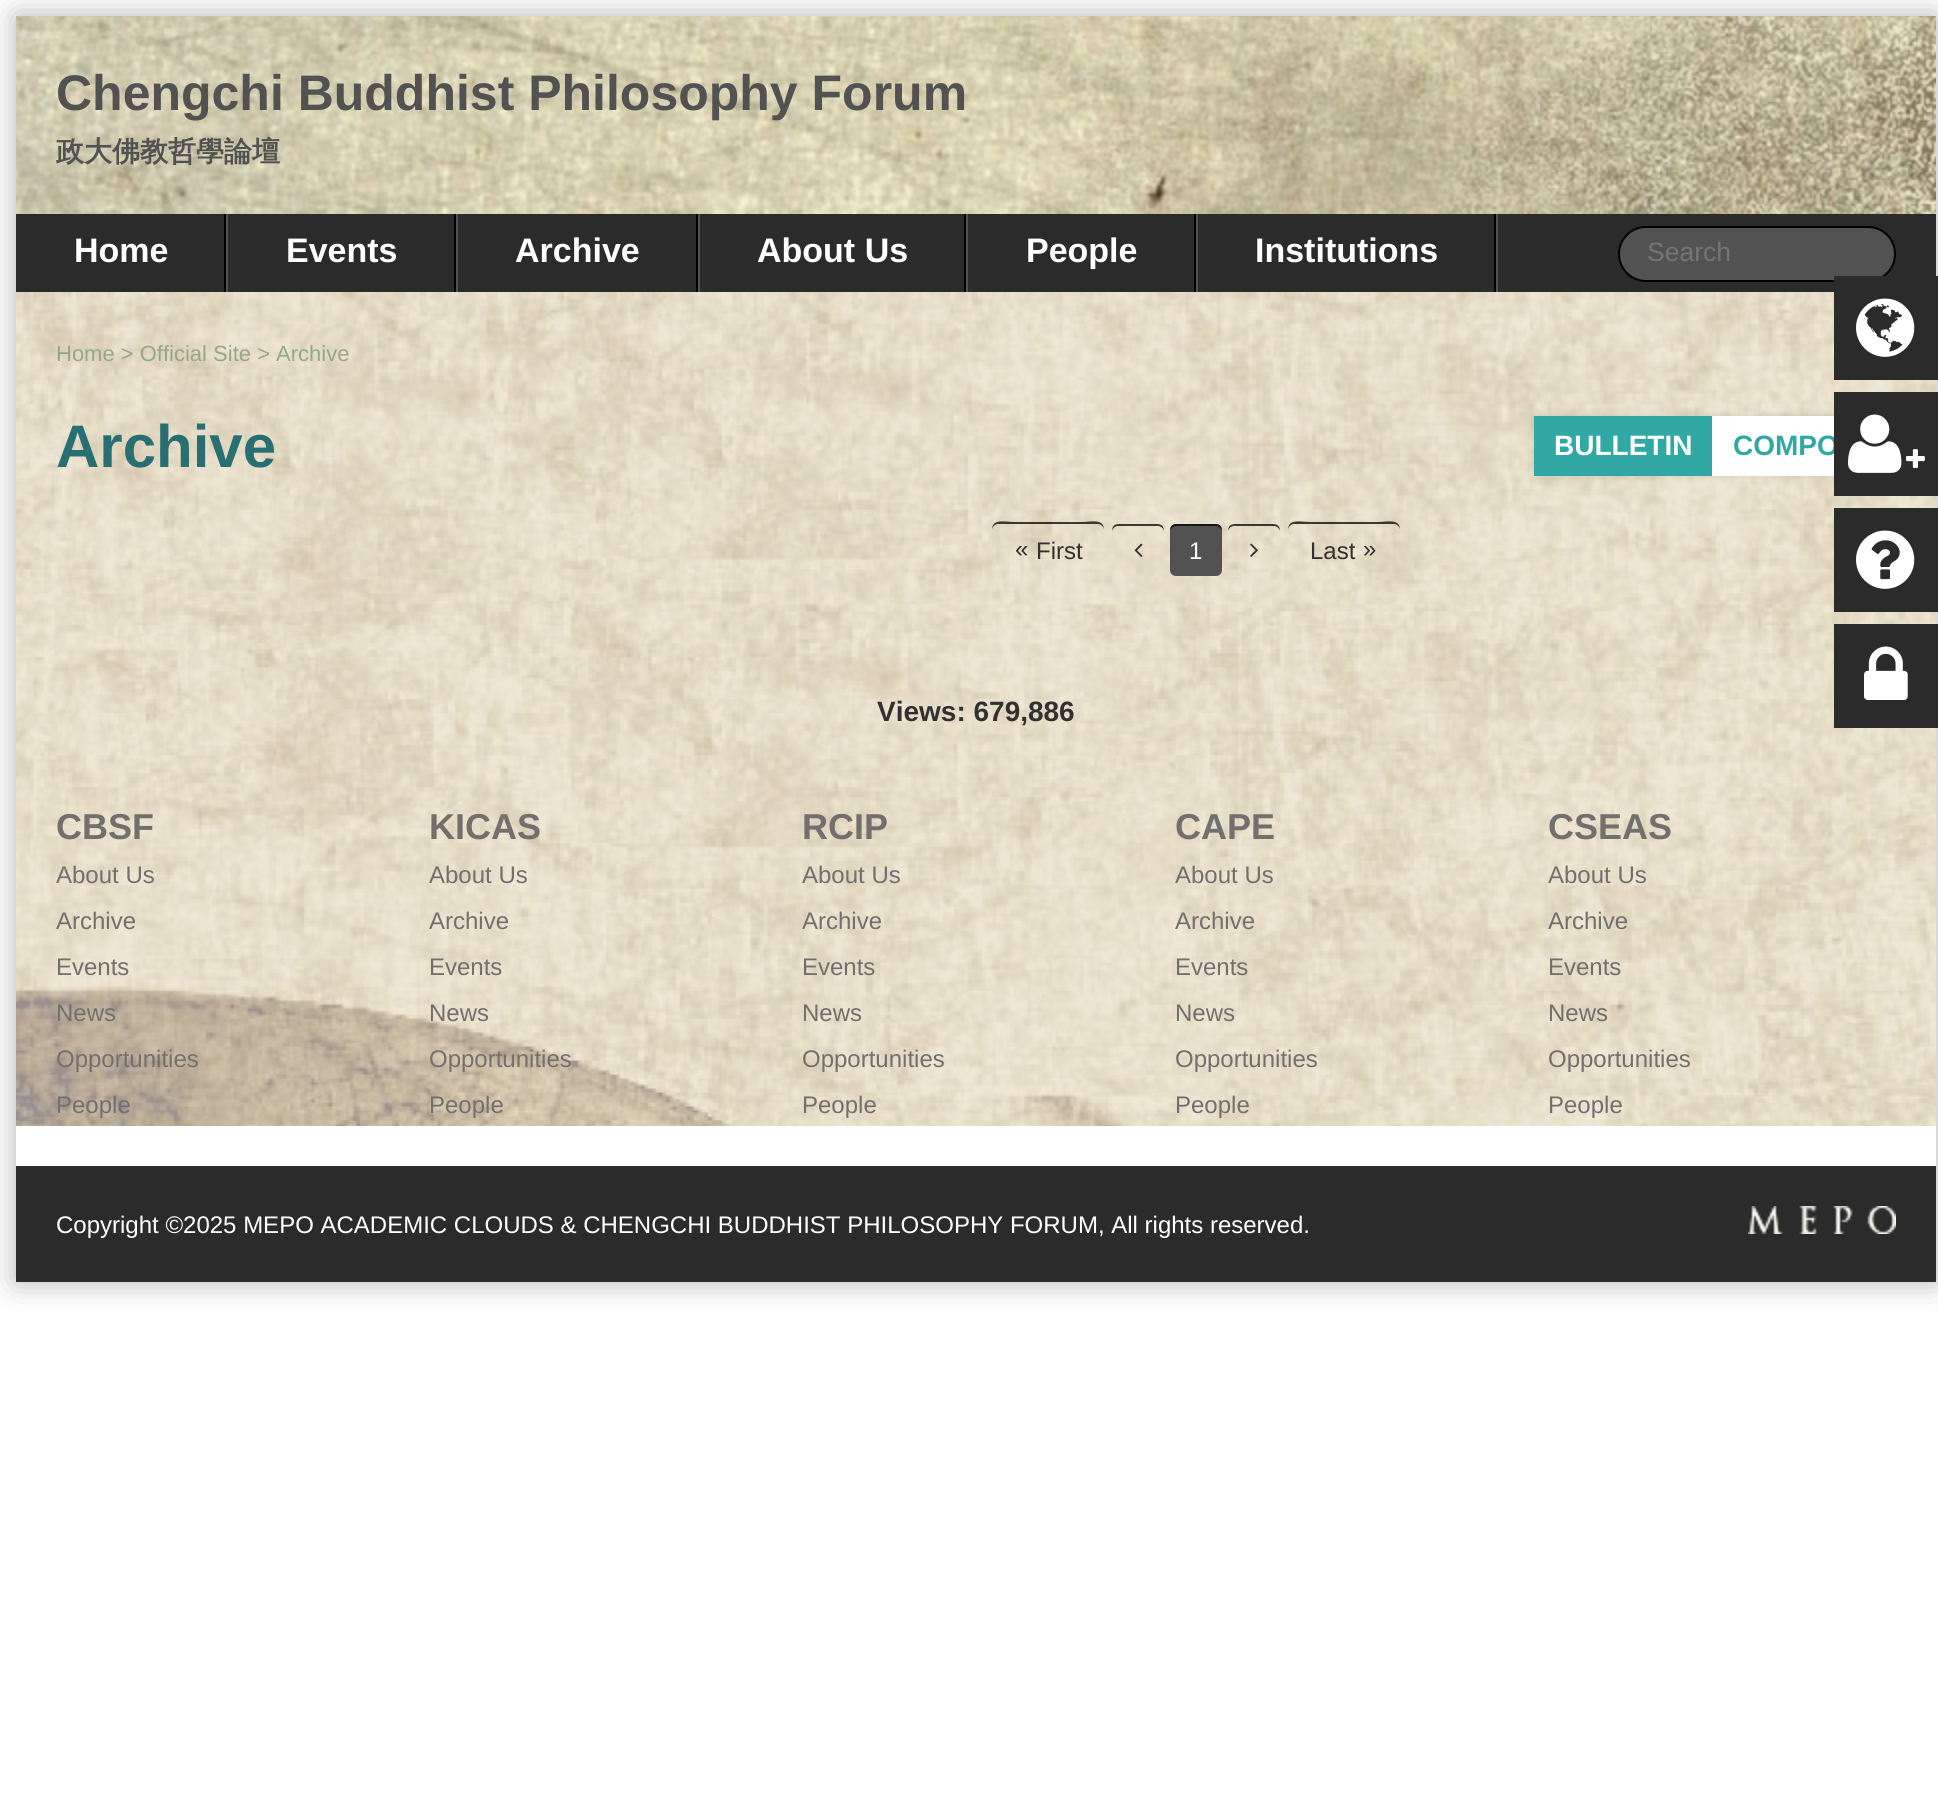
import math
import cairo



def rounded_rect(context, x, y, w, h, r):
    context.new_sub_path()
    for i, (u, v) in enumerate([(x + w - r, y + h - r), (x + r, y + h - r), (x + r, y + r), (x + w - r, y + r)]):
        context.arc(u, v, r, i * math.pi / 2, (i + 1) * math.pi / 2)
    context.close_path()


def draw_shadow(context, x, y, w, h, r, blur, alpha):
    context.push_group_with_content(cairo.Content.ALPHA)
    context.set_operator(cairo.Operator.SOURCE)
    for i in range(15, -16, -2):
        e = blur * i / 6
        if min(w, h) + 2 * e > 0:
            context.set_source_rgba(0, 0, 0, alpha * math.erfc((i - 1) / 8.5) / 2)
            rounded_rect(context, x - e, y - e, w + 2 * e, h + 2 * e, max(0, min(r + e + blur * .6, min(w, h) / 2 + e)))
            context.fill()
    context.mask(context.pop_group())


def draw_image(context, path, x, y, w, h):
    context.save()
    context.set_source_surface(cairo.ImageSurface.create_from_png(path), x, y)
    context.rectangle(x, y, w, h)
    context.fill()
    context.restore()


def draw(context):
    context.set_source_rgb(1, 1, 1)
    context.paint()
    context.save()
    context.set_fill_rule(cairo.FillRule.EVEN_ODD)
    context.new_path()
    context.move_to(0, 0)
    context.line_to(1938, 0)
    context.line_to(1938, 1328)
    context.line_to(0, 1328)
    context.close_path()
    context.move_to(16, 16)
    context.line_to(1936, 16)
    context.line_to(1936, 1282)
    context.line_to(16, 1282)
    context.close_path()
    context.clip()
    context.set_source_rgb(0, 0, 0)
    draw_shadow(context, 16, 16, 1920, 1266, 0, 15, 0.3)
    context.restore()
    draw_image(context, "images/1.png", 16, 16, 1920, 198)
    context.set_source_rgb(43 / 255, 43 / 255, 43 / 255)
    context.rectangle(16, 214, 1920, 78)
    context.fill()
    context.set_source_rgb(83 / 255, 82 / 255, 82 / 255)
    context.rectangle(226, 214, 2, 78)
    context.fill()
    context.set_source_rgb(0, 0, 0)
    context.rectangle(224, 214, 2, 78)
    context.fill()
    context.set_source_rgb(83 / 255, 82 / 255, 82 / 255)
    context.rectangle(456, 214, 2, 78)
    context.fill()
    context.set_source_rgb(0, 0, 0)
    context.rectangle(454, 214, 2, 78)
    context.fill()
    context.set_source_rgb(83 / 255, 82 / 255, 82 / 255)
    context.rectangle(698, 214, 2, 78)
    context.fill()
    context.set_source_rgb(0, 0, 0)
    context.rectangle(696, 214, 2, 78)
    context.fill()
    context.set_source_rgb(83 / 255, 82 / 255, 82 / 255)
    context.rectangle(966, 214, 2, 78)
    context.fill()
    context.set_source_rgb(0, 0, 0)
    context.rectangle(964, 214, 2, 78)
    context.fill()
    context.set_source_rgb(83 / 255, 82 / 255, 82 / 255)
    context.rectangle(1196, 214, 2, 78)
    context.fill()
    context.set_source_rgb(0, 0, 0)
    context.rectangle(1194, 214, 2, 78)
    context.fill()
    context.set_source_rgb(83 / 255, 82 / 255, 82 / 255)
    context.rectangle(1496, 214, 2, 78)
    context.fill()
    context.set_source_rgb(0, 0, 0)
    context.rectangle(1494, 214, 2, 78)
    context.fill()
    context.set_source_rgb(83 / 255, 82 / 255, 82 / 255)
    rounded_rect(context, 1619, 227, 276, 54, 27)
    context.fill_preserve()
    context.set_source_rgb(0, 0, 0)
    context.stroke()
    draw_image(context, "images/2.png", 16, 292, 1920, 834)
    context.set_source_rgb(0, 0, 0)
    draw_shadow(context, 1534, 416, 362, 60, 0, 5, 0.1)
    context.set_source_rgb(49 / 255, 168 / 255, 164 / 255)
    context.rectangle(1534, 416, 178, 60)
    context.fill()
    context.set_source_rgb(1, 1, 1)
    context.rectangle(1712, 416, 122, 60)
    context.fill()
    context.set_source_rgba(0, 0, 0, 0.75)
    context.new_path()
    context.move_to(998, 524)
    context.line_to(1098, 524)
    context.curve_to(1101, 524, 1104, 527, 1104, 530)
    context.curve_to(1104, 518, 1091, 522, 1081, 522)
    context.line_to(1015, 522)
    context.curve_to(1005, 522, 992, 518, 992, 530)
    context.curve_to(992, 527, 995, 524, 998, 524)
    context.close_path()
    context.fill()
    context.new_path()
    context.move_to(1118, 526)
    context.line_to(1158, 526)
    context.curve_to(1161, 526, 1164, 529, 1164, 532)
    context.curve_to(1164, 523, 1159, 524, 1151, 524)
    context.line_to(1125, 524)
    context.curve_to(1117, 524, 1112, 523, 1112, 532)
    context.curve_to(1112, 529, 1115, 526, 1118, 526)
    context.close_path()
    context.fill()
    draw_image(context, "images/3.png", 1134, 543, 9, 14)
    context.set_source_rgb(83 / 255, 82 / 255, 82 / 255)
    rounded_rect(context, 1170, 524, 52, 52, 6)
    context.fill()
    context.set_source_rgba(0, 0, 0, 0.75)
    context.new_path()
    context.move_to(1176, 526)
    context.line_to(1216, 526)
    context.curve_to(1219, 526, 1222, 529, 1222, 532)
    context.curve_to(1222, 523, 1217, 524, 1209, 524)
    context.line_to(1183, 524)
    context.curve_to(1175, 524, 1170, 523, 1170, 532)
    context.curve_to(1170, 529, 1173, 526, 1176, 526)
    context.close_path()
    context.fill()
    context.new_path()
    context.move_to(1234, 526)
    context.line_to(1274, 526)
    context.curve_to(1277, 526, 1280, 529, 1280, 532)
    context.curve_to(1280, 523, 1275, 524, 1267, 524)
    context.line_to(1241, 524)
    context.curve_to(1233, 524, 1228, 523, 1228, 532)
    context.curve_to(1228, 529, 1231, 526, 1234, 526)
    context.close_path()
    context.fill()
    draw_image(context, "images/4.png", 1250, 543, 8, 14)
    context.new_path()
    context.move_to(1294, 524)
    context.line_to(1394, 524)
    context.curve_to(1397, 524, 1400, 527, 1400, 530)
    context.curve_to(1400, 518, 1387, 522, 1377, 522)
    context.line_to(1311, 522)
    context.curve_to(1301, 522, 1288, 518, 1288, 530)
    context.curve_to(1288, 527, 1291, 524, 1294, 524)
    context.close_path()
    context.fill()
    context.set_source_rgb(43 / 255, 43 / 255, 43 / 255)
    context.rectangle(1834, 276, 104, 104)
    context.fill()
    draw_image(context, "images/5.png", 1856, 298, 59, 59)
    context.rectangle(1834, 508, 104, 104)
    context.fill()
    draw_image(context, "images/8.png", 1856, 530, 59, 59)
    context.rectangle(1834, 624, 104, 104)
    context.fill()
    draw_image(context, "images/9.png", 1864, 646, 44, 54)
    context.rectangle(16, 1166, 1920, 116)
    context.fill()
    draw_image(context, "images/10.png", 1748, 1206, 148, 28)
    context.select_font_face("Liberation Sans", cairo.FontSlant.NORMAL, cairo.FontWeight.BOLD)
    context.set_font_size(50)
    context.set_source_rgb(83 / 255, 82 / 255, 82 / 255)
    context.move_to(56, 110)
    context.show_text("Chengchi Buddhist Philosophy Forum")
    context.select_font_face("WenQuanYi Zen Hei", cairo.FontSlant.NORMAL, cairo.FontWeight.BOLD)
    context.set_font_size(28)
    context.move_to(56, 161)
    context.show_text("政大佛教哲學論壇")
    context.select_font_face("Liberation Sans", cairo.FontSlant.NORMAL, cairo.FontWeight.BOLD)
    context.set_font_size(34)
    context.set_source_rgb(1, 1, 1)
    context.move_to(74, 262)
    context.show_text("Home")
    context.move_to(286, 262)
    context.show_text("Events")
    context.move_to(515, 262)
    context.show_text("Archive")
    context.move_to(757, 262)
    context.show_text("About Us")
    context.move_to(1026, 262)
    context.show_text("People")
    context.move_to(1255, 262)
    context.show_text("Institutions")
    context.select_font_face("Liberation Sans")
    context.set_font_size(26.5)
    context.set_source_rgb(117 / 255, 117 / 255, 117 / 255)
    context.move_to(1647, 261)
    context.show_text("Search")
    context.set_font_size(22)
    context.set_source_rgb(147 / 255, 167 / 255, 137 / 255)
    context.move_to(56, 361)
    context.show_text("Home > Official Site > Archive")
    context.select_font_face("Liberation Sans", cairo.FontSlant.NORMAL, cairo.FontWeight.BOLD)
    context.set_font_size(60)
    context.set_source_rgb(39 / 255, 111 / 255, 114 / 255)
    context.move_to(56, 467)
    context.show_text("Archive")
    context.set_font_size(28)
    context.set_source_rgb(1, 1, 1)
    context.move_to(1554, 455)
    context.show_text("BULLETIN")
    context.set_source_rgb(49 / 255, 168 / 255, 164 / 255)
    context.move_to(1733, 455)
    context.show_text("COMPO")
    context.select_font_face("Liberation Sans")
    context.set_font_size(24)
    context.set_source_rgb(49 / 255, 49 / 255, 49 / 255)
    context.move_to(1015, 557)
    context.show_text("«")
    context.move_to(1036, 559)
    context.show_text("First")
    context.set_source_rgb(1, 1, 1)
    context.move_to(1189, 559)
    context.show_text("1")
    context.set_source_rgb(49 / 255, 49 / 255, 49 / 255)
    context.move_to(1310, 559)
    context.show_text("Last")
    context.move_to(1363, 557)
    context.show_text("»")
    context.select_font_face("Liberation Sans", cairo.FontSlant.NORMAL, cairo.FontWeight.BOLD)
    context.set_font_size(28)
    context.move_to(877, 721)
    context.show_text("Views: 679,886")
    context.set_font_size(36)
    context.set_source_rgb(114 / 255, 111 / 255, 111 / 255)
    context.move_to(56, 839)
    context.show_text("CBSF")
    context.select_font_face("Liberation Sans")
    context.set_font_size(24)
    context.move_to(56, 883)
    context.show_text("About Us")
    context.move_to(56, 929)
    context.show_text("Archive")
    context.move_to(56, 975)
    context.show_text("Events")
    context.move_to(56, 1021)
    context.show_text("News")
    context.move_to(56, 1067)
    context.show_text("Opportunities")
    context.move_to(56, 1113)
    context.show_text("People")
    context.select_font_face("Liberation Sans", cairo.FontSlant.NORMAL, cairo.FontWeight.BOLD)
    context.set_font_size(36)
    context.move_to(429, 839)
    context.show_text("KICAS")
    context.select_font_face("Liberation Sans")
    context.set_font_size(24)
    context.move_to(429, 883)
    context.show_text("About Us")
    context.move_to(429, 929)
    context.show_text("Archive")
    context.move_to(429, 975)
    context.show_text("Events")
    context.move_to(429, 1021)
    context.show_text("News")
    context.move_to(429, 1067)
    context.show_text("Opportunities")
    context.move_to(429, 1113)
    context.show_text("People")
    context.select_font_face("Liberation Sans", cairo.FontSlant.NORMAL, cairo.FontWeight.BOLD)
    context.set_font_size(36)
    context.move_to(802, 839)
    context.show_text("RCIP")
    context.select_font_face("Liberation Sans")
    context.set_font_size(24)
    context.move_to(802, 883)
    context.show_text("About Us")
    context.move_to(802, 929)
    context.show_text("Archive")
    context.move_to(802, 975)
    context.show_text("Events")
    context.move_to(802, 1021)
    context.show_text("News")
    context.move_to(802, 1067)
    context.show_text("Opportunities")
    context.move_to(802, 1113)
    context.show_text("People")
    context.select_font_face("Liberation Sans", cairo.FontSlant.NORMAL, cairo.FontWeight.BOLD)
    context.set_font_size(36)
    context.move_to(1175, 839)
    context.show_text("CAPE")
    context.select_font_face("Liberation Sans")
    context.set_font_size(24)
    context.move_to(1175, 883)
    context.show_text("About Us")
    context.move_to(1175, 929)
    context.show_text("Archive")
    context.move_to(1175, 975)
    context.show_text("Events")
    context.move_to(1175, 1021)
    context.show_text("News")
    context.move_to(1175, 1067)
    context.show_text("Opportunities")
    context.move_to(1175, 1113)
    context.show_text("People")
    context.select_font_face("Liberation Sans", cairo.FontSlant.NORMAL, cairo.FontWeight.BOLD)
    context.set_font_size(36)
    context.move_to(1548, 839)
    context.show_text("CSEAS")
    context.select_font_face("Liberation Sans")
    context.set_font_size(24)
    context.move_to(1548, 883)
    context.show_text("About Us")
    context.move_to(1548, 929)
    context.show_text("Archive")
    context.move_to(1548, 975)
    context.show_text("Events")
    context.move_to(1548, 1021)
    context.show_text("News")
    context.move_to(1548, 1067)
    context.show_text("Opportunities")
    context.move_to(1548, 1113)
    context.show_text("People")
    context.set_source_rgb(43 / 255, 43 / 255, 43 / 255)
    context.rectangle(1834, 392, 104, 104)
    context.fill()
    draw_image(context, "images/6.png", 1848, 414, 54, 59)
    draw_image(context, "images/7.png", 1906, 449, 19, 19)
    context.set_source_rgb(1, 1, 1)
    context.move_to(56, 1233)
    context.show_text("Copyright ©2025 MEPO ACADEMIC CLOUDS & CHENGCHI BUDDHIST PHILOSOPHY FORUM, All rights reserved.")


surface = cairo.ImageSurface(cairo.Format.RGB24, 1938, 1794)
context = cairo.Context(surface)
options = cairo.FontOptions()
options.set_hint_metrics(cairo.HintMetrics.OFF)
options.set_hint_style(cairo.HintStyle.NONE)
context.set_font_options(options)
context.set_miter_limit(4)
draw(context)
surface.write_to_png("out.png")
